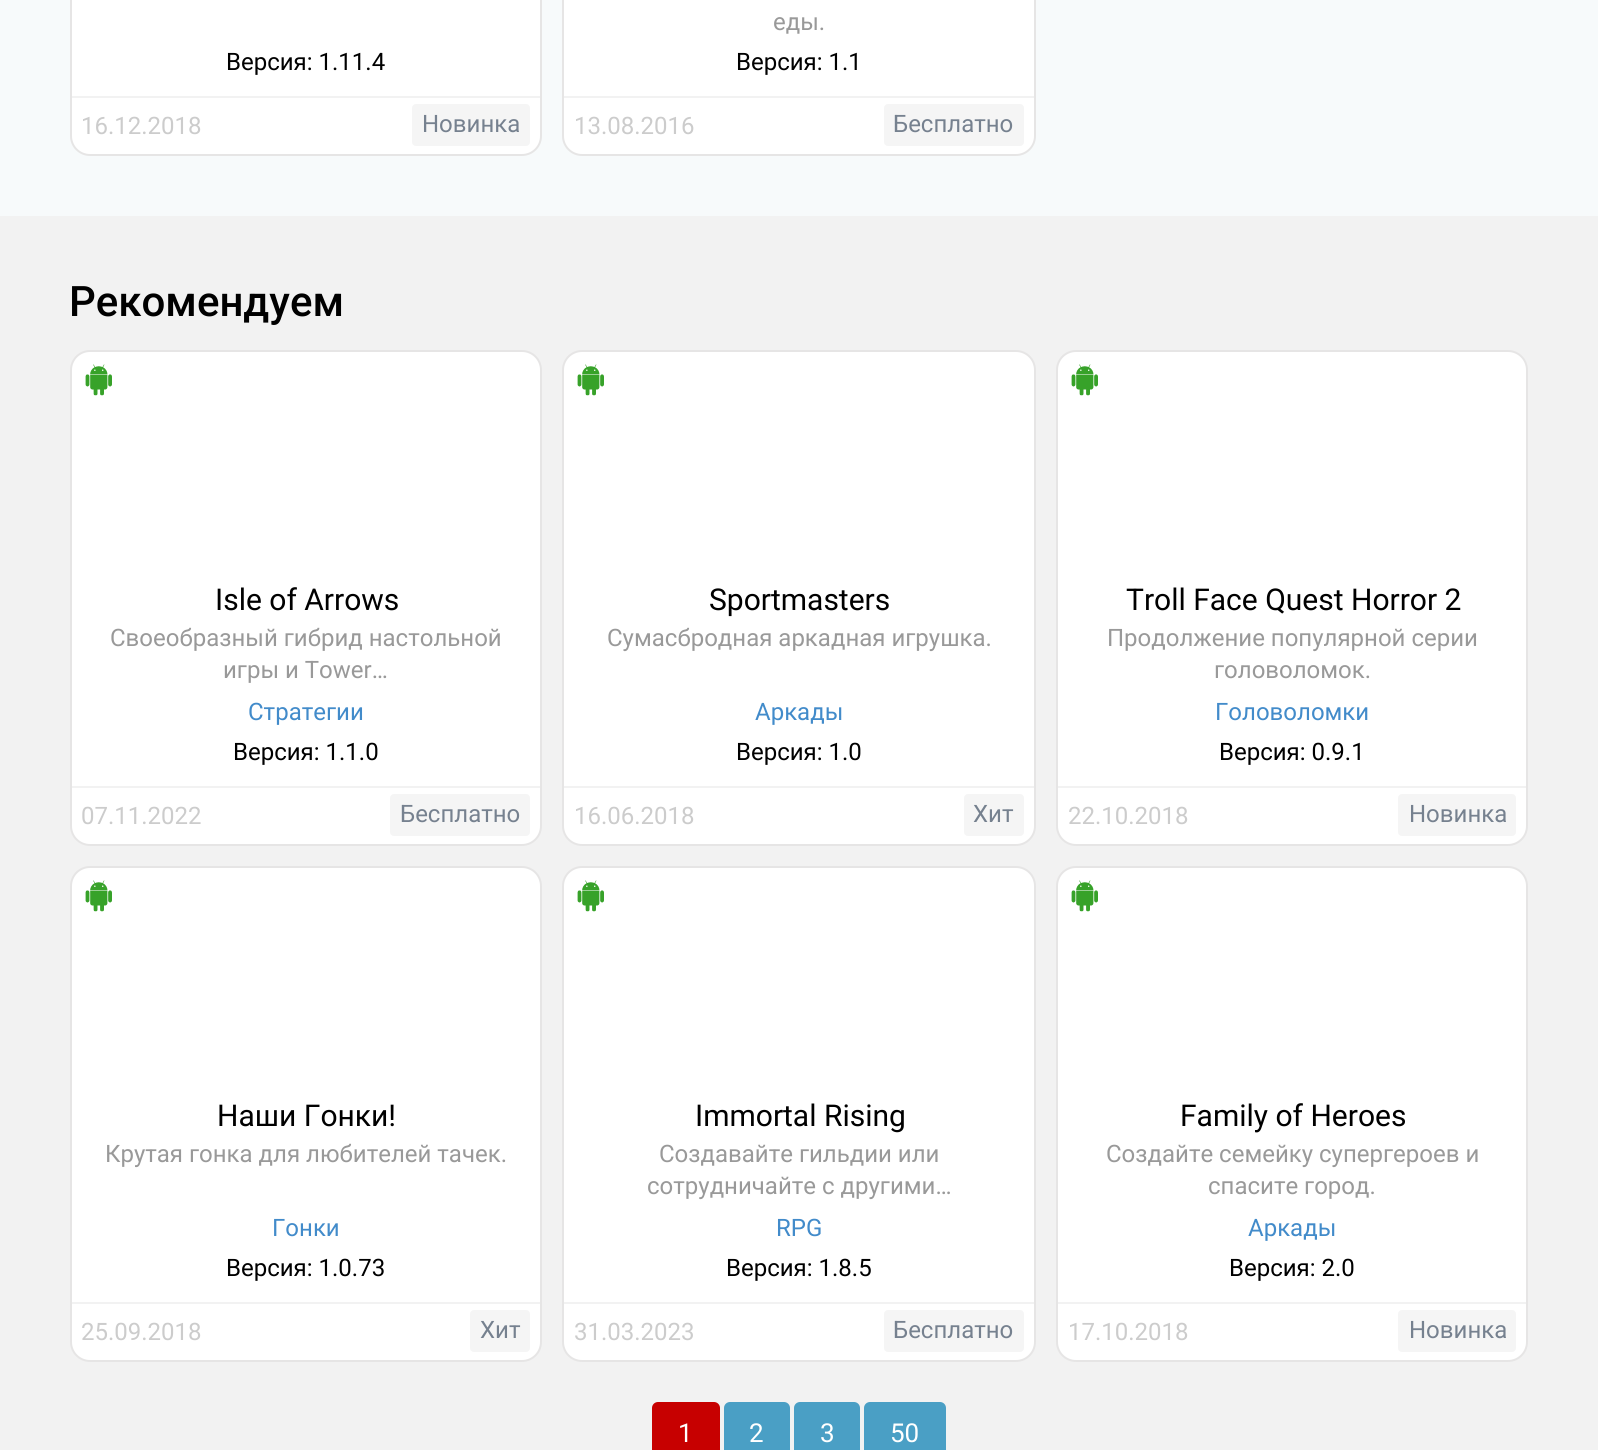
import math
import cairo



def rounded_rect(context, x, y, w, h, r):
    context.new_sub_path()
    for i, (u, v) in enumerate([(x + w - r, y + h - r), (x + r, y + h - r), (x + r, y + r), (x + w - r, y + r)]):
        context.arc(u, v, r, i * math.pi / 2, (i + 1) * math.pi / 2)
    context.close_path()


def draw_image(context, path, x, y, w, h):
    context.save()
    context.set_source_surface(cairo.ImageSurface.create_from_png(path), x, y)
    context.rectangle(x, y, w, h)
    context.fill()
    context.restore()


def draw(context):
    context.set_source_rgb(242 / 255, 242 / 255, 242 / 255)
    context.paint()
    context.set_source_rgb(247 / 255, 250 / 255, 251 / 255)
    context.rectangle(0, 0, 1598, 216)
    context.fill()
    context.set_source_rgb(1, 1, 1)
    rounded_rect(context, 71, -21, 470, 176, 19)
    context.fill_preserve()
    context.set_source_rgb(230 / 255, 229 / 255, 229 / 255)
    context.stroke()
    context.set_source_rgb(242 / 255, 242 / 255, 242 / 255)
    context.rectangle(72, 96, 468, 2)
    context.fill()
    context.set_source_rgb(245 / 255, 245 / 255, 245 / 255)
    rounded_rect(context, 412, 104, 118, 42, 4)
    context.fill()
    context.set_source_rgb(1, 1, 1)
    rounded_rect(context, 563, -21, 472, 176, 19)
    context.fill_preserve()
    context.set_source_rgb(230 / 255, 229 / 255, 229 / 255)
    context.stroke()
    context.set_source_rgb(242 / 255, 242 / 255, 242 / 255)
    context.rectangle(564, 96, 470, 2)
    context.fill()
    context.set_source_rgb(245 / 255, 245 / 255, 245 / 255)
    rounded_rect(context, 884, 104, 140, 42, 4)
    context.fill()
    context.set_source_rgb(1, 1, 1)
    rounded_rect(context, 71, 351, 470, 494, 19)
    context.fill_preserve()
    context.set_source_rgb(230 / 255, 229 / 255, 229 / 255)
    context.stroke()
    draw_image(context, "images/1.png", 85, 364, 27, 32)
    context.set_source_rgb(242 / 255, 242 / 255, 242 / 255)
    context.rectangle(72, 786, 468, 2)
    context.fill()
    context.set_source_rgb(245 / 255, 245 / 255, 245 / 255)
    rounded_rect(context, 390, 794, 140, 42, 4)
    context.fill()
    context.set_source_rgb(1, 1, 1)
    rounded_rect(context, 563, 351, 472, 494, 19)
    context.fill_preserve()
    context.set_source_rgb(230 / 255, 229 / 255, 229 / 255)
    context.stroke()
    draw_image(context, "images/1.png", 577, 364, 27, 32)
    context.set_source_rgb(242 / 255, 242 / 255, 242 / 255)
    context.rectangle(564, 786, 470, 2)
    context.fill()
    context.set_source_rgb(245 / 255, 245 / 255, 245 / 255)
    rounded_rect(context, 964, 794, 60, 42, 4)
    context.fill()
    context.set_source_rgb(1, 1, 1)
    rounded_rect(context, 1057, 351, 470, 494, 19)
    context.fill_preserve()
    context.set_source_rgb(230 / 255, 229 / 255, 229 / 255)
    context.stroke()
    draw_image(context, "images/1.png", 1071, 364, 27, 32)
    context.set_source_rgb(242 / 255, 242 / 255, 242 / 255)
    context.rectangle(1058, 786, 468, 2)
    context.fill()
    context.set_source_rgb(245 / 255, 245 / 255, 245 / 255)
    rounded_rect(context, 1398, 794, 118, 42, 4)
    context.fill()
    context.set_source_rgb(1, 1, 1)
    rounded_rect(context, 71, 867, 470, 494, 19)
    context.fill_preserve()
    context.set_source_rgb(230 / 255, 229 / 255, 229 / 255)
    context.stroke()
    draw_image(context, "images/1.png", 85, 880, 27, 32)
    context.set_source_rgb(242 / 255, 242 / 255, 242 / 255)
    context.rectangle(72, 1302, 468, 2)
    context.fill()
    context.set_source_rgb(245 / 255, 245 / 255, 245 / 255)
    rounded_rect(context, 470, 1310, 60, 42, 4)
    context.fill()
    context.set_source_rgb(1, 1, 1)
    rounded_rect(context, 563, 867, 472, 494, 19)
    context.fill_preserve()
    context.set_source_rgb(230 / 255, 229 / 255, 229 / 255)
    context.stroke()
    draw_image(context, "images/1.png", 577, 880, 27, 32)
    context.set_source_rgb(242 / 255, 242 / 255, 242 / 255)
    context.rectangle(564, 1302, 470, 2)
    context.fill()
    context.set_source_rgb(245 / 255, 245 / 255, 245 / 255)
    rounded_rect(context, 884, 1310, 140, 42, 4)
    context.fill()
    context.set_source_rgb(1, 1, 1)
    rounded_rect(context, 1057, 867, 470, 494, 19)
    context.fill_preserve()
    context.set_source_rgb(230 / 255, 229 / 255, 229 / 255)
    context.stroke()
    draw_image(context, "images/1.png", 1071, 880, 27, 32)
    context.set_source_rgb(242 / 255, 242 / 255, 242 / 255)
    context.rectangle(1058, 1302, 468, 2)
    context.fill()
    context.set_source_rgb(245 / 255, 245 / 255, 245 / 255)
    rounded_rect(context, 1398, 1310, 118, 42, 4)
    context.fill()
    context.set_source_rgb(199 / 255, 0, 0)
    rounded_rect(context, 652, 1402, 68, 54, 6)
    context.fill()
    context.set_source_rgb(74 / 255, 159 / 255, 197 / 255)
    rounded_rect(context, 724, 1402, 66, 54, 6)
    context.fill()
    rounded_rect(context, 794, 1402, 66, 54, 6)
    context.fill()
    rounded_rect(context, 864, 1402, 82, 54, 6)
    context.fill()
    context.select_font_face("Roboto")
    context.set_font_size(24)
    context.set_source_rgb(0, 0, 0)
    context.move_to(226, 70)
    context.show_text("Версия: 1.11.4")
    context.set_source_rgb(204 / 255, 204 / 255, 204 / 255)
    context.move_to(81, 134)
    context.show_text("16.12.2018")
    context.set_source_rgb(118 / 255, 129 / 255, 143 / 255)
    context.move_to(422, 132)
    context.show_text("Новинка")
    context.set_source_rgb(153 / 255, 153 / 255, 153 / 255)
    context.move_to(773, 30)
    context.show_text("еды.")
    context.set_source_rgb(0, 0, 0)
    context.move_to(736, 70)
    context.show_text("Версия: 1.1")
    context.set_source_rgb(204 / 255, 204 / 255, 204 / 255)
    context.move_to(574, 134)
    context.show_text("13.08.2016")
    context.set_source_rgb(118 / 255, 129 / 255, 143 / 255)
    context.move_to(893, 132)
    context.show_text("Бесплатно")
    context.select_font_face("Roboto Medium")
    context.set_font_size(42)
    context.set_source_rgb(0, 0, 0)
    context.move_to(69, 316)
    context.show_text("Рекомендуем")
    context.select_font_face("Roboto")
    context.set_font_size(30)
    context.move_to(215, 610)
    context.show_text("Isle of Arrows")
    context.set_font_size(24)
    context.set_source_rgb(153 / 255, 153 / 255, 153 / 255)
    context.move_to(110, 646)
    context.show_text("Своеобразный гибрид настольной")
    context.move_to(223, 678)
    context.show_text("игры и Tower…")
    context.set_source_rgb(66 / 255, 139 / 255, 202 / 255)
    context.move_to(248, 720)
    context.show_text("Стратегии")
    context.set_source_rgb(0, 0, 0)
    context.move_to(233, 760)
    context.show_text("Версия: 1.1.0")
    context.set_source_rgb(204 / 255, 204 / 255, 204 / 255)
    context.move_to(81, 824)
    context.show_text("07.11.2022")
    context.set_source_rgb(118 / 255, 129 / 255, 143 / 255)
    context.move_to(400, 822)
    context.show_text("Бесплатно")
    context.set_font_size(30)
    context.set_source_rgb(0, 0, 0)
    context.move_to(709, 610)
    context.show_text("Sportmasters")
    context.set_font_size(24)
    context.set_source_rgb(153 / 255, 153 / 255, 153 / 255)
    context.move_to(607, 646)
    context.show_text("Сумасбродная аркадная игрушка.")
    context.set_source_rgb(66 / 255, 139 / 255, 202 / 255)
    context.move_to(755, 720)
    context.show_text("Аркады")
    context.set_source_rgb(0, 0, 0)
    context.move_to(736, 760)
    context.show_text("Версия: 1.0")
    context.set_source_rgb(204 / 255, 204 / 255, 204 / 255)
    context.move_to(574, 824)
    context.show_text("16.06.2018")
    context.set_source_rgb(118 / 255, 129 / 255, 143 / 255)
    context.move_to(973, 822)
    context.show_text("Хит")
    context.set_font_size(30)
    context.set_source_rgb(0, 0, 0)
    context.move_to(1126, 610)
    context.show_text("Troll Face Quest Horror 2")
    context.set_font_size(24)
    context.set_source_rgb(153 / 255, 153 / 255, 153 / 255)
    context.move_to(1107, 646)
    context.show_text("Продолжение популярной серии")
    context.move_to(1214, 678)
    context.show_text("головоломок.")
    context.set_source_rgb(66 / 255, 139 / 255, 202 / 255)
    context.move_to(1215, 720)
    context.show_text("Головоломки")
    context.set_source_rgb(0, 0, 0)
    context.move_to(1219, 760)
    context.show_text("Версия: 0.9.1")
    context.set_source_rgb(204 / 255, 204 / 255, 204 / 255)
    context.move_to(1068, 824)
    context.show_text("22.10.2018")
    context.set_source_rgb(118 / 255, 129 / 255, 143 / 255)
    context.move_to(1409, 822)
    context.show_text("Новинка")
    context.set_font_size(30)
    context.set_source_rgb(0, 0, 0)
    context.move_to(217, 1126)
    context.show_text("Наши Гонки!")
    context.set_font_size(24)
    context.set_source_rgb(153 / 255, 153 / 255, 153 / 255)
    context.move_to(105, 1162)
    context.show_text("Крутая гонка для любителей тачек.")
    context.set_source_rgb(66 / 255, 139 / 255, 202 / 255)
    context.move_to(272, 1236)
    context.show_text("Гонки")
    context.set_source_rgb(0, 0, 0)
    context.move_to(226, 1276)
    context.show_text("Версия: 1.0.73")
    context.set_source_rgb(204 / 255, 204 / 255, 204 / 255)
    context.move_to(81, 1340)
    context.show_text("25.09.2018")
    context.set_source_rgb(118 / 255, 129 / 255, 143 / 255)
    context.move_to(480, 1338)
    context.show_text("Хит")
    context.set_font_size(30)
    context.set_source_rgb(0, 0, 0)
    context.move_to(695, 1126)
    context.show_text("Immortal Rising")
    context.set_font_size(24)
    context.set_source_rgb(153 / 255, 153 / 255, 153 / 255)
    context.move_to(659, 1162)
    context.show_text("Создавайте гильдии или")
    context.move_to(647, 1194)
    context.show_text("сотрудничайте с другими…")
    context.set_source_rgb(66 / 255, 139 / 255, 202 / 255)
    context.move_to(776, 1236)
    context.show_text("RPG")
    context.set_source_rgb(0, 0, 0)
    context.move_to(726, 1276)
    context.show_text("Версия: 1.8.5")
    context.set_source_rgb(204 / 255, 204 / 255, 204 / 255)
    context.move_to(574, 1340)
    context.show_text("31.03.2023")
    context.set_source_rgb(118 / 255, 129 / 255, 143 / 255)
    context.move_to(893, 1338)
    context.show_text("Бесплатно")
    context.set_font_size(30)
    context.set_source_rgb(0, 0, 0)
    context.move_to(1180, 1126)
    context.show_text("Family of Heroes")
    context.set_font_size(24)
    context.set_source_rgb(153 / 255, 153 / 255, 153 / 255)
    context.move_to(1106, 1162)
    context.show_text("Создайте семейку супергероев и")
    context.move_to(1208, 1194)
    context.show_text("спасите город.")
    context.set_source_rgb(66 / 255, 139 / 255, 202 / 255)
    context.move_to(1248, 1236)
    context.show_text("Аркады")
    context.set_source_rgb(0, 0, 0)
    context.move_to(1229, 1276)
    context.show_text("Версия: 2.0")
    context.set_source_rgb(204 / 255, 204 / 255, 204 / 255)
    context.move_to(1068, 1340)
    context.show_text("17.10.2018")
    context.set_source_rgb(118 / 255, 129 / 255, 143 / 255)
    context.move_to(1409, 1338)
    context.show_text("Новинка")
    context.set_font_size(26)
    context.set_source_rgb(1, 1, 1)
    context.move_to(678, 1442)
    context.show_text("1")
    context.move_to(749, 1442)
    context.show_text("2")
    context.move_to(820, 1442)
    context.show_text("3")
    context.move_to(890, 1442)
    context.show_text("50")


surface = cairo.ImageSurface(cairo.Format.RGB24, 1598, 1450)
context = cairo.Context(surface)
options = cairo.FontOptions()
options.set_hint_metrics(cairo.HintMetrics.OFF)
options.set_hint_style(cairo.HintStyle.NONE)
context.set_font_options(options)
context.set_miter_limit(4)
draw(context)
surface.write_to_png("out.png")
